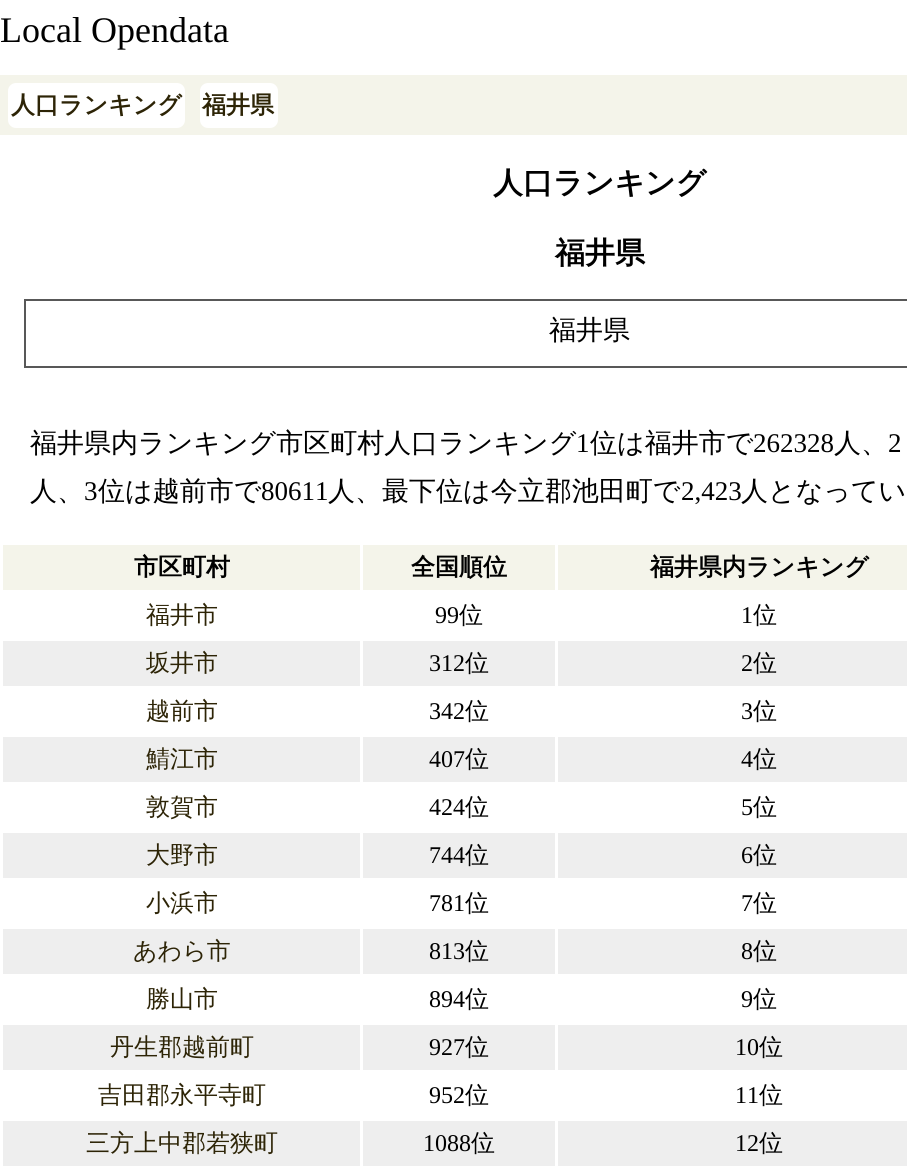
import math
import cairo



def rounded_rect(context, x, y, w, h, r):
    context.new_sub_path()
    for i, (u, v) in enumerate([(x + w - r, y + h - r), (x + r, y + h - r), (x + r, y + r), (x + w - r, y + r)]):
        context.arc(u, v, r, i * math.pi / 2, (i + 1) * math.pi / 2)
    context.close_path()


def draw(context):
    context.set_source_rgb(1, 1, 1)
    context.paint()
    context.set_source_rgb(244 / 255, 244 / 255, 234 / 255)
    context.rectangle(0, 75, 907, 60)
    context.fill()
    context.set_source_rgb(1, 1, 1)
    rounded_rect(context, 8, 83, 177, 45, 8)
    context.fill()
    rounded_rect(context, 200, 83, 78, 45, 8)
    context.fill()
    context.rectangle(25, 300, 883, 67)
    context.set_source_rgb(88 / 255, 88 / 255, 88 / 255)
    context.stroke()
    context.set_source_rgb(244 / 255, 244 / 255, 234 / 255)
    context.rectangle(3, 545, 357, 45)
    context.fill()
    context.rectangle(363, 545, 192, 45)
    context.fill()
    context.rectangle(558, 545, 349, 45)
    context.fill()
    context.set_source_rgb(238 / 255, 238 / 255, 238 / 255)
    context.rectangle(3, 641, 357, 45)
    context.fill()
    context.rectangle(363, 641, 192, 45)
    context.fill()
    context.rectangle(558, 641, 349, 45)
    context.fill()
    context.rectangle(3, 737, 357, 45)
    context.fill()
    context.rectangle(363, 737, 192, 45)
    context.fill()
    context.rectangle(558, 737, 349, 45)
    context.fill()
    context.rectangle(3, 833, 357, 45)
    context.fill()
    context.rectangle(363, 833, 192, 45)
    context.fill()
    context.rectangle(558, 833, 349, 45)
    context.fill()
    context.rectangle(3, 929, 357, 45)
    context.fill()
    context.rectangle(363, 929, 192, 45)
    context.fill()
    context.rectangle(558, 929, 349, 45)
    context.fill()
    context.rectangle(3, 1025, 357, 45)
    context.fill()
    context.rectangle(363, 1025, 192, 45)
    context.fill()
    context.rectangle(558, 1025, 349, 45)
    context.fill()
    context.rectangle(3, 1121, 357, 45)
    context.fill()
    context.rectangle(363, 1121, 192, 45)
    context.fill()
    context.rectangle(558, 1121, 349, 45)
    context.fill()
    context.select_font_face("Liberation Serif")
    context.set_font_size(36)
    context.set_source_rgb(0, 0, 0)
    context.move_to(0, 42)
    context.show_text("Local Opendata")
    context.select_font_face("WenQuanYi Zen Hei", cairo.FontSlant.NORMAL, cairo.FontWeight.BOLD)
    context.set_font_size(24)
    context.set_source_rgb(45 / 255, 36 / 255, 6 / 255)
    context.move_to(11, 113)
    context.show_text("人口ランキング")
    context.move_to(202, 113)
    context.show_text("福井県")
    context.set_font_size(30)
    context.set_source_rgb(0, 0, 0)
    context.move_to(493, 193)
    context.show_text("人口ランキング")
    context.move_to(555, 263)
    context.show_text("福井県")
    context.select_font_face("WenQuanYi Zen Hei Medium")
    context.set_font_size(27)
    context.move_to(549, 339)
    context.show_text("福井県")
    context.move_to(30, 452)
    context.show_text("福井県内ランキング市区町村人口ランキング")
    context.select_font_face("Liberation Serif")
    context.move_to(576, 452)
    context.show_text("1")
    context.select_font_face("WenQuanYi Zen Hei Medium")
    context.move_to(590, 452)
    context.show_text("位は福井市で")
    context.select_font_face("Liberation Serif")
    context.move_to(753, 452)
    context.show_text("262328")
    context.select_font_face("WenQuanYi Zen Hei Medium")
    context.move_to(834, 452)
    context.show_text("人、")
    context.select_font_face("Liberation Serif")
    context.move_to(888, 452)
    context.show_text("2")
    context.select_font_face("WenQuanYi Zen Hei Medium")
    context.move_to(30, 500)
    context.show_text("人、")
    context.select_font_face("Liberation Serif")
    context.move_to(84, 500)
    context.show_text("3")
    context.select_font_face("WenQuanYi Zen Hei Medium")
    context.move_to(98, 500)
    context.show_text("位は越前市で")
    context.select_font_face("Liberation Serif")
    context.move_to(261, 500)
    context.show_text("80611")
    context.select_font_face("WenQuanYi Zen Hei Medium")
    context.move_to(328, 500)
    context.show_text("人、最下位は今立郡池田町で")
    context.select_font_face("Liberation Serif")
    context.move_to(681, 500)
    context.show_text("2,423")
    context.select_font_face("WenQuanYi Zen Hei Medium")
    context.move_to(741, 500)
    context.show_text("人となってい")
    context.select_font_face("WenQuanYi Zen Hei", cairo.FontSlant.NORMAL, cairo.FontWeight.BOLD)
    context.set_font_size(24)
    context.move_to(134, 575)
    context.show_text("市区町村")
    context.move_to(411, 575)
    context.show_text("全国順位")
    context.move_to(650, 575)
    context.show_text("福井県内ランキング")
    context.select_font_face("WenQuanYi Zen Hei Medium")
    context.set_source_rgb(45 / 255, 36 / 255, 6 / 255)
    context.move_to(146, 623)
    context.show_text("福井市")
    context.select_font_face("Liberation Serif")
    context.set_source_rgb(0, 0, 0)
    context.move_to(435, 623)
    context.show_text("99")
    context.select_font_face("WenQuanYi Zen Hei Medium")
    context.move_to(459, 623)
    context.show_text("位")
    context.select_font_face("Liberation Serif")
    context.move_to(741, 623)
    context.show_text("1")
    context.select_font_face("WenQuanYi Zen Hei Medium")
    context.move_to(753, 623)
    context.show_text("位")
    context.set_source_rgb(45 / 255, 36 / 255, 6 / 255)
    context.move_to(146, 671)
    context.show_text("坂井市")
    context.select_font_face("Liberation Serif")
    context.set_source_rgb(0, 0, 0)
    context.move_to(429, 671)
    context.show_text("312")
    context.select_font_face("WenQuanYi Zen Hei Medium")
    context.move_to(465, 671)
    context.show_text("位")
    context.select_font_face("Liberation Serif")
    context.move_to(741, 671)
    context.show_text("2")
    context.select_font_face("WenQuanYi Zen Hei Medium")
    context.move_to(753, 671)
    context.show_text("位")
    context.set_source_rgb(45 / 255, 36 / 255, 6 / 255)
    context.move_to(146, 719)
    context.show_text("越前市")
    context.select_font_face("Liberation Serif")
    context.set_source_rgb(0, 0, 0)
    context.move_to(429, 719)
    context.show_text("342")
    context.select_font_face("WenQuanYi Zen Hei Medium")
    context.move_to(465, 719)
    context.show_text("位")
    context.select_font_face("Liberation Serif")
    context.move_to(741, 719)
    context.show_text("3")
    context.select_font_face("WenQuanYi Zen Hei Medium")
    context.move_to(753, 719)
    context.show_text("位")
    context.set_source_rgb(45 / 255, 36 / 255, 6 / 255)
    context.move_to(146, 767)
    context.show_text("鯖江市")
    context.select_font_face("Liberation Serif")
    context.set_source_rgb(0, 0, 0)
    context.move_to(429, 767)
    context.show_text("407")
    context.select_font_face("WenQuanYi Zen Hei Medium")
    context.move_to(465, 767)
    context.show_text("位")
    context.select_font_face("Liberation Serif")
    context.move_to(741, 767)
    context.show_text("4")
    context.select_font_face("WenQuanYi Zen Hei Medium")
    context.move_to(753, 767)
    context.show_text("位")
    context.set_source_rgb(45 / 255, 36 / 255, 6 / 255)
    context.move_to(146, 815)
    context.show_text("敦賀市")
    context.select_font_face("Liberation Serif")
    context.set_source_rgb(0, 0, 0)
    context.move_to(429, 815)
    context.show_text("424")
    context.select_font_face("WenQuanYi Zen Hei Medium")
    context.move_to(465, 815)
    context.show_text("位")
    context.select_font_face("Liberation Serif")
    context.move_to(741, 815)
    context.show_text("5")
    context.select_font_face("WenQuanYi Zen Hei Medium")
    context.move_to(753, 815)
    context.show_text("位")
    context.set_source_rgb(45 / 255, 36 / 255, 6 / 255)
    context.move_to(146, 863)
    context.show_text("大野市")
    context.select_font_face("Liberation Serif")
    context.set_source_rgb(0, 0, 0)
    context.move_to(429, 863)
    context.show_text("744")
    context.select_font_face("WenQuanYi Zen Hei Medium")
    context.move_to(465, 863)
    context.show_text("位")
    context.select_font_face("Liberation Serif")
    context.move_to(741, 863)
    context.show_text("6")
    context.select_font_face("WenQuanYi Zen Hei Medium")
    context.move_to(753, 863)
    context.show_text("位")
    context.set_source_rgb(45 / 255, 36 / 255, 6 / 255)
    context.move_to(146, 911)
    context.show_text("小浜市")
    context.select_font_face("Liberation Serif")
    context.set_source_rgb(0, 0, 0)
    context.move_to(429, 911)
    context.show_text("781")
    context.select_font_face("WenQuanYi Zen Hei Medium")
    context.move_to(465, 911)
    context.show_text("位")
    context.select_font_face("Liberation Serif")
    context.move_to(741, 911)
    context.show_text("7")
    context.select_font_face("WenQuanYi Zen Hei Medium")
    context.move_to(753, 911)
    context.show_text("位")
    context.set_source_rgb(45 / 255, 36 / 255, 6 / 255)
    context.move_to(133, 959)
    context.show_text("あわら市")
    context.select_font_face("Liberation Serif")
    context.set_source_rgb(0, 0, 0)
    context.move_to(429, 959)
    context.show_text("813")
    context.select_font_face("WenQuanYi Zen Hei Medium")
    context.move_to(465, 959)
    context.show_text("位")
    context.select_font_face("Liberation Serif")
    context.move_to(741, 959)
    context.show_text("8")
    context.select_font_face("WenQuanYi Zen Hei Medium")
    context.move_to(753, 959)
    context.show_text("位")
    context.set_source_rgb(45 / 255, 36 / 255, 6 / 255)
    context.move_to(146, 1007)
    context.show_text("勝山市")
    context.select_font_face("Liberation Serif")
    context.set_source_rgb(0, 0, 0)
    context.move_to(429, 1007)
    context.show_text("894")
    context.select_font_face("WenQuanYi Zen Hei Medium")
    context.move_to(465, 1007)
    context.show_text("位")
    context.select_font_face("Liberation Serif")
    context.move_to(741, 1007)
    context.show_text("9")
    context.select_font_face("WenQuanYi Zen Hei Medium")
    context.move_to(753, 1007)
    context.show_text("位")
    context.set_source_rgb(45 / 255, 36 / 255, 6 / 255)
    context.move_to(110, 1055)
    context.show_text("丹生郡越前町")
    context.select_font_face("Liberation Serif")
    context.set_source_rgb(0, 0, 0)
    context.move_to(429, 1055)
    context.show_text("927")
    context.select_font_face("WenQuanYi Zen Hei Medium")
    context.move_to(465, 1055)
    context.show_text("位")
    context.select_font_face("Liberation Serif")
    context.move_to(735, 1055)
    context.show_text("10")
    context.select_font_face("WenQuanYi Zen Hei Medium")
    context.move_to(759, 1055)
    context.show_text("位")
    context.set_source_rgb(45 / 255, 36 / 255, 6 / 255)
    context.move_to(98, 1103)
    context.show_text("吉田郡永平寺町")
    context.select_font_face("Liberation Serif")
    context.set_source_rgb(0, 0, 0)
    context.move_to(429, 1103)
    context.show_text("952")
    context.select_font_face("WenQuanYi Zen Hei Medium")
    context.move_to(465, 1103)
    context.show_text("位")
    context.select_font_face("Liberation Serif")
    context.move_to(735, 1103)
    context.show_text("11")
    context.select_font_face("WenQuanYi Zen Hei Medium")
    context.move_to(759, 1103)
    context.show_text("位")
    context.set_source_rgb(45 / 255, 36 / 255, 6 / 255)
    context.move_to(86, 1151)
    context.show_text("三方上中郡若狭町")
    context.select_font_face("Liberation Serif")
    context.set_source_rgb(0, 0, 0)
    context.move_to(423, 1151)
    context.show_text("1088")
    context.select_font_face("WenQuanYi Zen Hei Medium")
    context.move_to(471, 1151)
    context.show_text("位")
    context.select_font_face("Liberation Serif")
    context.move_to(735, 1151)
    context.show_text("12")
    context.select_font_face("WenQuanYi Zen Hei Medium")
    context.move_to(759, 1151)
    context.show_text("位")


surface = cairo.ImageSurface(cairo.Format.RGB24, 907, 1172)
context = cairo.Context(surface)
options = cairo.FontOptions()
options.set_hint_metrics(cairo.HintMetrics.OFF)
options.set_hint_style(cairo.HintStyle.NONE)
context.set_font_options(options)
context.set_miter_limit(4)
draw(context)
surface.write_to_png("out.png")
